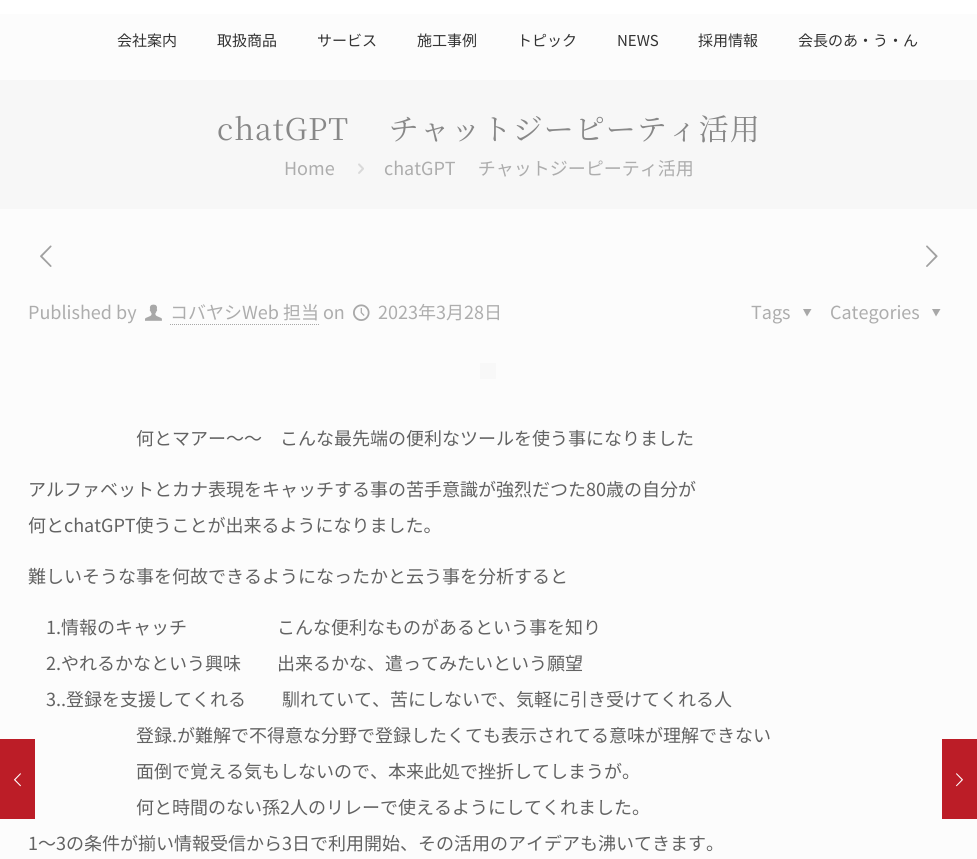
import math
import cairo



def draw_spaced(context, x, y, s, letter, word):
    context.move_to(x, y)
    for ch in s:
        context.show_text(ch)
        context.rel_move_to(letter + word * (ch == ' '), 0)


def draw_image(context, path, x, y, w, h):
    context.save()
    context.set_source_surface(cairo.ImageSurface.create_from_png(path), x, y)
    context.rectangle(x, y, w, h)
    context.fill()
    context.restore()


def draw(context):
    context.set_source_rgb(252 / 255, 252 / 255, 252 / 255)
    context.paint()
    context.set_source_rgb(188 / 255, 29 / 255, 39 / 255)
    context.rectangle(0, 739, 35, 80)
    context.fill()
    draw_image(context, "images/1.png", 14, 773, 7, 14)
    gradient = cairo.LinearGradient(489, 0, 489, 80)
    gradient.add_color_stop_rgba(0, 1, 1, 1, 1)
    gradient.add_color_stop_rgba(0.7, 253 / 255, 253 / 255, 253 / 255, 1)
    context.set_source(gradient)
    context.rectangle(0, 0, 977, 14)
    context.fill()
    context.set_source_rgb(247 / 255, 247 / 255, 247 / 255)
    context.rectangle(0, 80, 977, 129)
    context.fill()
    draw_image(context, "images/2.png", 358, 163, 6, 11)
    draw_image(context, "images/3.png", 40, 245, 12, 22)
    draw_image(context, "images/4.png", 926, 245, 12, 22)
    draw_image(context, "images/5.png", 145, 304, 17, 17)
    context.new_path()
    context.move_to(170, 324.5)
    context.line_to(319, 324.5)
    context.set_source_rgb(168 / 255, 168 / 255, 168 / 255)
    context.set_line_width(1)
    context.set_dash([1, 1])
    context.stroke()
    draw_image(context, "images/6.png", 353, 304, 17, 17)
    context.new_path()
    context.move_to(811.5, 309)
    context.line_to(807, 316.5)
    context.line_to(803, 309)
    context.close_path()
    context.fill()
    context.new_path()
    context.move_to(940.5, 309)
    context.line_to(936, 316.5)
    context.line_to(932, 309)
    context.close_path()
    context.fill()
    context.set_source_rgb(248 / 255, 248 / 255, 248 / 255)
    context.rectangle(480, 363, 16, 16)
    context.fill()
    context.set_source_rgb(188 / 255, 29 / 255, 39 / 255)
    context.rectangle(942, 739, 35, 80)
    context.fill()
    draw_image(context, "images/7.png", 956, 773, 7, 14)
    context.select_font_face("Noto Sans JP Thin")
    context.set_font_size(15)
    context.set_source_rgb(51 / 255, 51 / 255, 51 / 255)
    context.move_to(117, 46)
    context.show_text("会社案内")
    context.move_to(217, 46)
    context.show_text("取扱商品")
    context.move_to(317, 46)
    context.show_text("サービス")
    context.move_to(417, 46)
    context.show_text("施工事例")
    context.move_to(517, 46)
    context.show_text("トピック")
    context.move_to(617, 46)
    context.show_text("NEWS")
    context.move_to(698, 46)
    context.show_text("採用情報")
    context.move_to(798, 46)
    context.show_text("会長のあ・う・ん")
    context.select_font_face("Noto Serif JP")
    context.set_font_size(30)
    context.set_source_rgb(136 / 255, 136 / 255, 136 / 255)
    draw_spaced(context, 217, 140, "chatGPT 　チャットジーピーティ活用", 1, 0)
    context.select_font_face("Noto Sans JP Thin")
    context.set_font_size(18)
    context.set_source_rgb(173 / 255, 173 / 255, 173 / 255)
    context.move_to(284, 175)
    context.show_text("Home")
    context.move_to(384, 175)
    context.show_text("chatGPT 　チャットジーピーティ活用")
    context.move_to(28, 319)
    context.show_text("Published by")
    context.move_to(170, 319)
    context.show_text("コバヤシWeb 担当 on")
    context.move_to(378, 319)
    context.show_text("2023年3月28日")
    context.move_to(751, 319)
    context.show_text("Tags")
    context.move_to(830, 319)
    context.show_text("Categories")
    context.set_source_rgb(98 / 255, 98 / 255, 98 / 255)
    context.move_to(136, 445)
    context.show_text("何とマアー～～　こんな最先端の便利なツールを使う事になりました")
    context.move_to(28, 496)
    context.show_text("アルファベットとカナ表現をキャッチする事の苦手意識が強烈だつた80歳の自分が")
    context.move_to(28, 532)
    context.show_text("何とchatGPT使うことが出来るようになりました。")
    context.move_to(28, 583)
    context.show_text("難しいそうな事を何故できるようになったかと云う事を分析すると")
    context.move_to(46, 634)
    context.show_text("1.情報のキャッチ　　　　　こんな便利なものがあるという事を知り")
    context.move_to(46, 670)
    context.show_text("2.やれるかなという興味　　出来るかな、遣ってみたいという願望")
    context.move_to(46, 706)
    context.show_text("3..登録を支援してくれる　　馴れていて、苦にしないで、気軽に引き受けてくれる人")
    context.move_to(136, 742)
    context.show_text("登録.が難解で不得意な分野で登録したくても表示されてる意味が理解できない")
    context.move_to(136, 778)
    context.show_text("面倒で覚える気もしないので、本来此処で挫折してしまうが。")
    context.move_to(136, 814)
    context.show_text("何と時間のない孫2人のリレーで使えるようにしてくれました。")
    context.move_to(28, 850)
    context.show_text("1～3の条件が揃い情報受信から3日で利用開始、その活用のアイデアも沸いてきます。")


surface = cairo.ImageSurface(cairo.Format.RGB24, 977, 859)
context = cairo.Context(surface)
options = cairo.FontOptions()
options.set_hint_metrics(cairo.HintMetrics.OFF)
options.set_hint_style(cairo.HintStyle.NONE)
context.set_font_options(options)
context.set_miter_limit(4)
draw(context)
surface.write_to_png("out.png")
